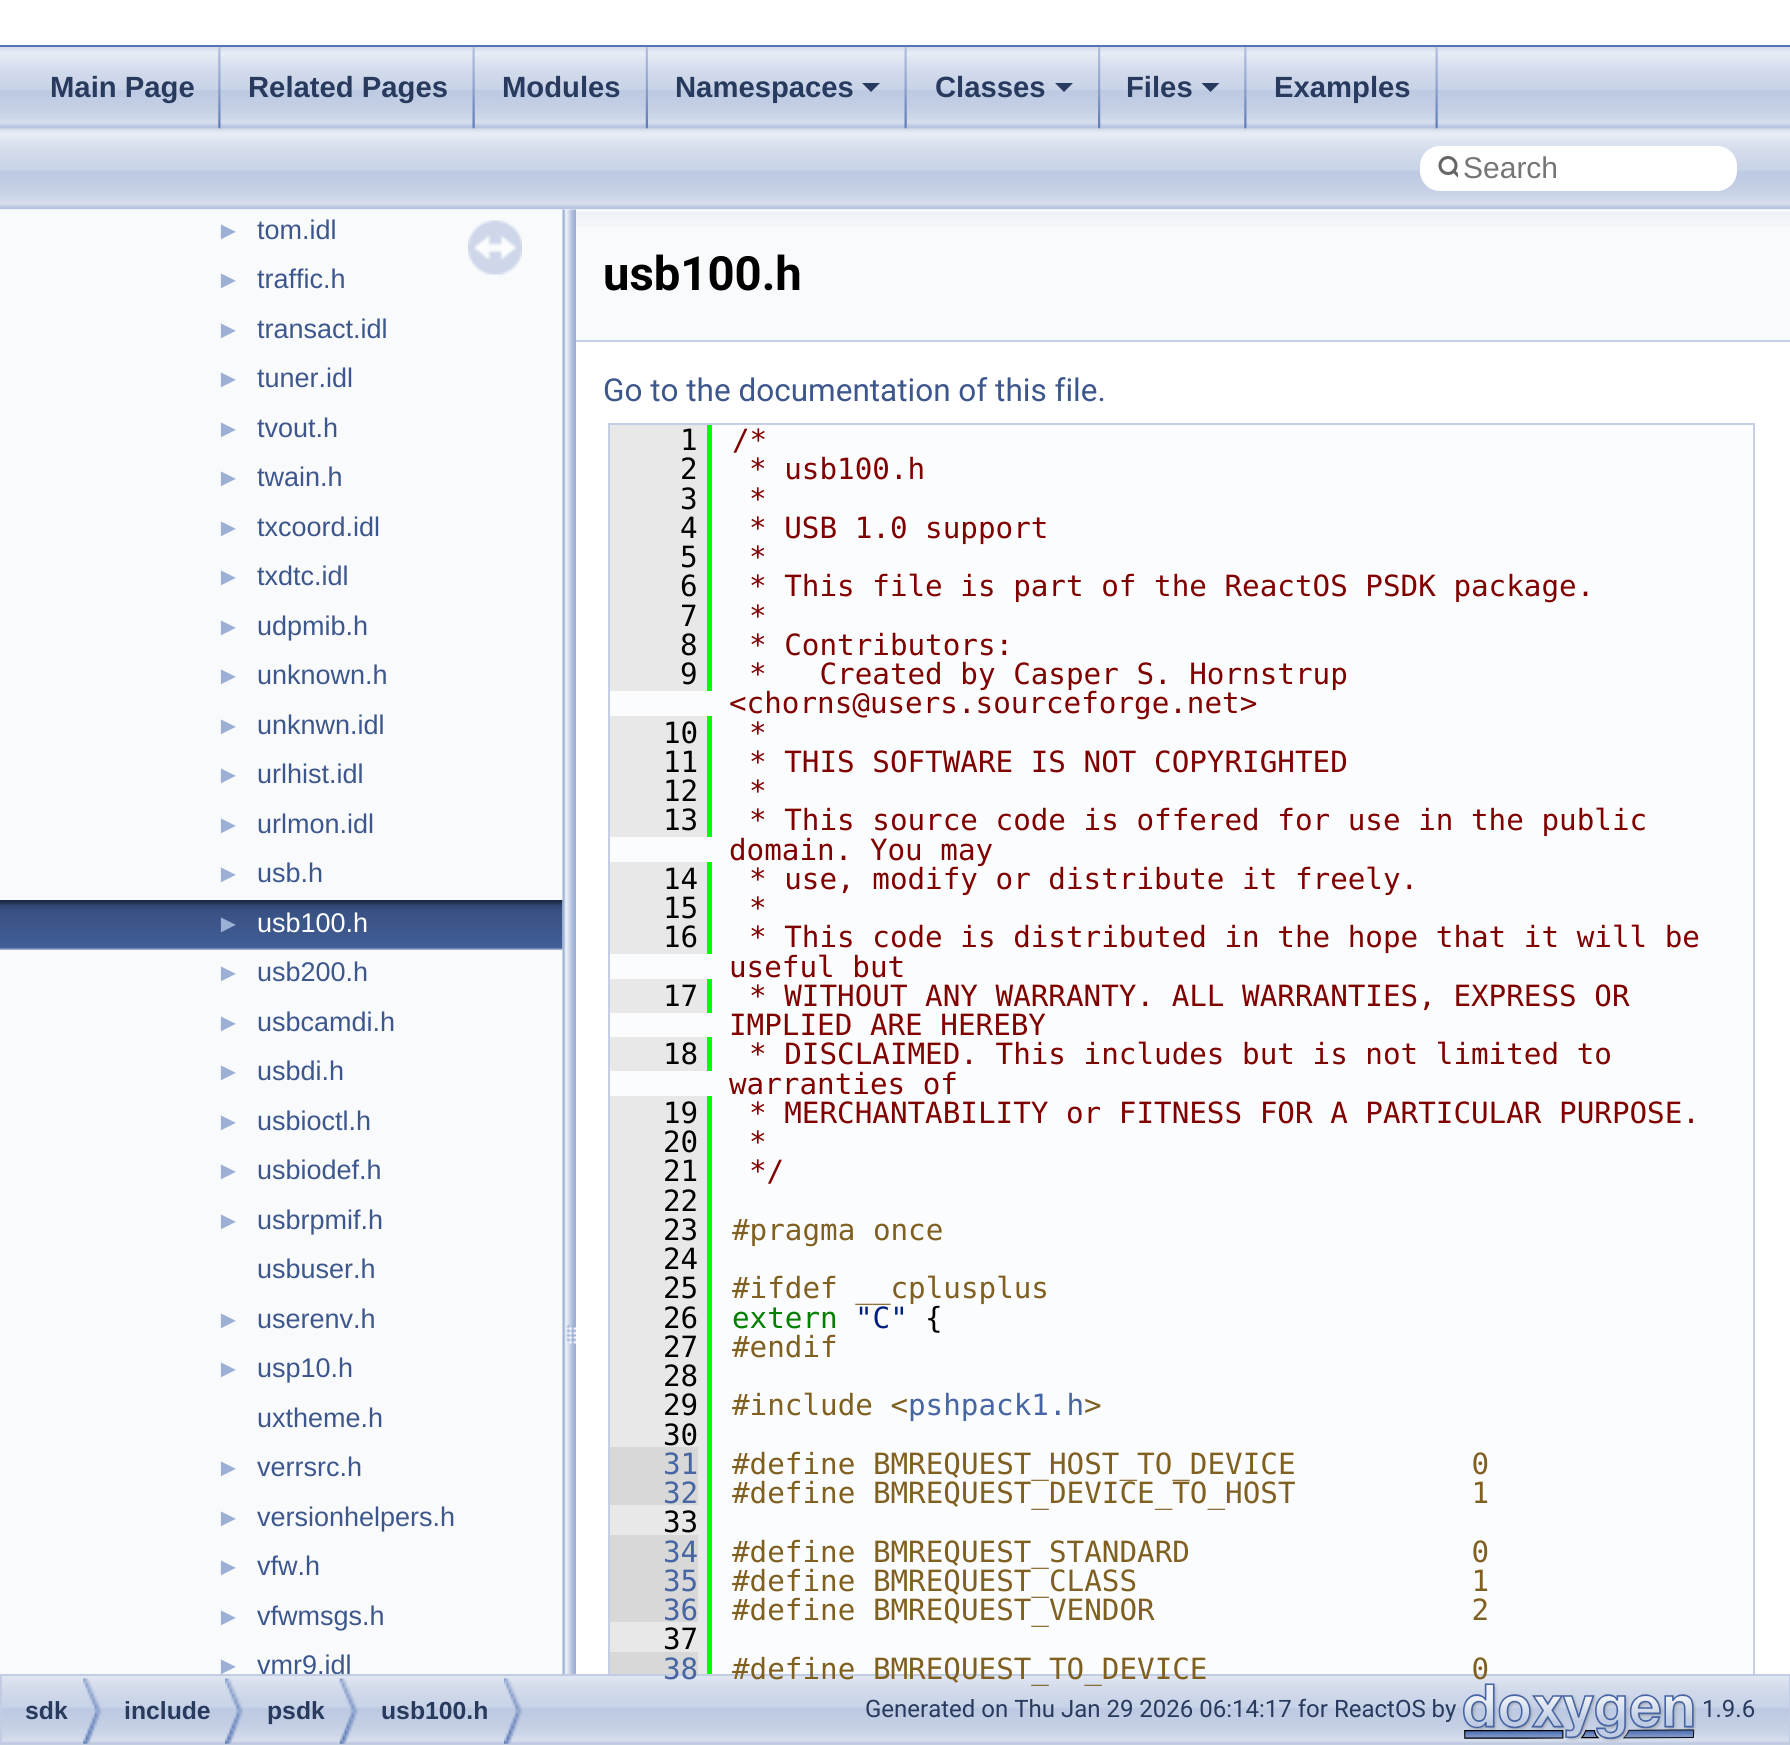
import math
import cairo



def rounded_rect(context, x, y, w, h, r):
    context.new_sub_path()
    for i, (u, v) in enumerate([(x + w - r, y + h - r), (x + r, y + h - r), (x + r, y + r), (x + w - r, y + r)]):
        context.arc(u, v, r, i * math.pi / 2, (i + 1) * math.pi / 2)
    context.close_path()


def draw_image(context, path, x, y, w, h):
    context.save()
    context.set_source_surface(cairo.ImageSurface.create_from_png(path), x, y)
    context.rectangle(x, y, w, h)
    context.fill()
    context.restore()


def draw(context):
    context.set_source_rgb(1, 1, 1)
    context.paint()
    context.set_source_rgb(83 / 255, 115 / 255, 180 / 255)
    context.rectangle(0, 45, 1790, 2)
    context.fill()
    context.set_source_rgb(249 / 255, 250 / 255, 252 / 255)
    context.rectangle(0, 209, 563, 1465)
    context.fill()
    draw_image(context, "images/6.png", 0, 900, 563, 50)
    draw_image(context, "images/8.png", 562, 209, 14, 1465)
    context.rectangle(576, 209, 1214, 131)
    context.fill()
    draw_image(context, "images/1.png", 0, 47, 1790, 163)
    draw_image(context, "images/2.png", 218, 47, 3, 82)
    draw_image(context, "images/3.png", 472, 47, 3, 82)
    draw_image(context, "images/4.png", 645, 47, 3, 82)
    draw_image(context, "images/3.png", 904, 47, 3, 82)
    context.set_source_rgb(40 / 255, 58 / 255, 93 / 255)
    context.new_path()
    context.move_to(862, 83)
    context.line_to(880, 83)
    context.line_to(871, 92)
    context.close_path()
    context.fill()
    draw_image(context, "images/5.png", 1098, 47, 3, 82)
    context.new_path()
    context.move_to(1055, 83)
    context.line_to(1073, 83)
    context.line_to(1064, 92)
    context.close_path()
    context.fill()
    draw_image(context, "images/2.png", 1244, 47, 3, 82)
    context.new_path()
    context.move_to(1201.5, 83)
    context.line_to(1219.5, 83)
    context.line_to(1210.5, 92)
    context.close_path()
    context.fill()
    draw_image(context, "images/3.png", 1435, 47, 3, 82)
    context.set_source_rgb(1, 1, 1)
    rounded_rect(context, 1420, 146, 317, 45, 20)
    context.fill()
    context.arc(1448, 165.5, 8, 0, 2 * math.pi)
    context.set_source_rgb(101 / 255, 101 / 255, 101 / 255)
    context.set_line_width(3.1)
    context.stroke()
    context.save()
    context.rectangle(1436, 146, 22, 43)
    context.clip()
    context.new_path()
    context.move_to(1453.5, 171)
    context.line_to(1460, 177.5)
    context.set_line_cap(cairo.LineCap.ROUND)
    context.stroke()
    context.restore()
    draw_image(context, "images/7.png", 468, 220, 54, 55)
    draw_image(context, "images/9.png", 576, 210, 1214, 17)
    context.set_source_rgb(196 / 255, 207 / 255, 229 / 255)
    context.rectangle(576, 340, 1214, 2)
    context.fill()
    context.set_source_rgb(251 / 255, 252 / 255, 253 / 255)
    context.rectangle(610, 425, 1143, 1249)
    context.fill()
    context.rectangle(609, 424, 1145, 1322)
    context.set_source_rgb(196 / 255, 207 / 255, 229 / 255)
    context.set_line_width(2)
    context.stroke()
    context.set_source_rgb(232 / 255, 232 / 255, 232 / 255)
    context.rectangle(610, 425, 97, 266)
    context.fill()
    context.set_source_rgb(0, 1, 0)
    context.rectangle(707, 425, 5, 266)
    context.fill()
    context.set_source_rgb(232 / 255, 232 / 255, 232 / 255)
    context.rectangle(610, 716, 97, 121)
    context.fill()
    context.set_source_rgb(0, 1, 0)
    context.rectangle(707, 716, 5, 121)
    context.fill()
    context.set_source_rgb(232 / 255, 232 / 255, 232 / 255)
    context.rectangle(610, 862, 97, 92)
    context.fill()
    context.set_source_rgb(0, 1, 0)
    context.rectangle(707, 862, 5, 92)
    context.fill()
    context.set_source_rgb(232 / 255, 232 / 255, 232 / 255)
    context.rectangle(610, 979, 97, 34)
    context.fill()
    context.set_source_rgb(0, 1, 0)
    context.rectangle(707, 979, 5, 34)
    context.fill()
    context.set_source_rgb(232 / 255, 232 / 255, 232 / 255)
    context.rectangle(610, 1037, 97, 34)
    context.fill()
    context.set_source_rgb(0, 1, 0)
    context.rectangle(707, 1037, 5, 34)
    context.fill()
    context.set_source_rgb(232 / 255, 232 / 255, 232 / 255)
    context.rectangle(610, 1096, 97, 351)
    context.fill()
    context.set_source_rgb(0, 1, 0)
    context.rectangle(707, 1096, 5, 578)
    context.fill()
    context.set_source_rgb(232 / 255, 232 / 255, 232 / 255)
    context.rectangle(698, 1447, 9, 58)
    context.fill()
    context.set_source_rgb(216 / 255, 216 / 255, 216 / 255)
    context.rectangle(610, 1447, 88, 58)
    context.fill()
    context.set_source_rgb(232 / 255, 232 / 255, 232 / 255)
    context.rectangle(610, 1505, 97, 30)
    context.fill()
    context.rectangle(698, 1535, 9, 87)
    context.fill()
    context.set_source_rgb(216 / 255, 216 / 255, 216 / 255)
    context.rectangle(610, 1535, 88, 87)
    context.fill()
    context.set_source_rgb(232 / 255, 232 / 255, 232 / 255)
    context.rectangle(610, 1622, 97, 30)
    context.fill()
    context.rectangle(698, 1652, 9, 22)
    context.fill()
    context.set_source_rgb(216 / 255, 216 / 255, 216 / 255)
    context.rectangle(610, 1652, 88, 22)
    context.fill()
    draw_image(context, "images/10.png", 2, 1676, 1787, 68)
    context.rectangle(1, 1675, 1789, 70)
    context.set_source_rgb(194 / 255, 205 / 255, 228 / 255)
    context.stroke()
    draw_image(context, "images/11.png", 83, 1678, 19, 66)
    draw_image(context, "images/12.png", 225, 1678, 18, 66)
    draw_image(context, "images/13.png", 339, 1678, 19, 66)
    draw_image(context, "images/14.png", 504, 1678, 18, 66)
    draw_image(context, "images/15.png", 1463, 1683, 233, 59)
    context.select_font_face("Liberation Sans", cairo.FontSlant.NORMAL, cairo.FontWeight.BOLD)
    context.set_font_size(29.25)
    context.set_source_rgb(40 / 255, 58 / 255, 93 / 255)
    context.move_to(50, 97)
    context.show_text("Main Page")
    context.move_to(248, 97)
    context.show_text("Related Pages")
    context.move_to(502, 97)
    context.show_text("Modules")
    context.move_to(675, 97)
    context.show_text("Namespaces")
    context.move_to(935, 97)
    context.show_text("Classes")
    context.move_to(1126, 97)
    context.show_text("Files")
    context.move_to(1274, 97)
    context.show_text("Examples")
    context.select_font_face("Liberation Sans")
    context.set_font_size(30)
    context.set_source_rgb(117 / 255, 117 / 255, 117 / 255)
    context.move_to(1463, 178)
    context.show_text("Search")
    context.set_font_size(25)
    context.set_source_rgb(156 / 255, 175 / 255, 212 / 255)
    context.move_to(216, 239)
    context.show_text("►")
    context.set_font_size(27)
    context.set_source_rgb(61 / 255, 87 / 255, 140 / 255)
    context.move_to(257, 239)
    context.show_text("tom.idl")
    context.set_font_size(25)
    context.set_source_rgb(156 / 255, 175 / 255, 212 / 255)
    context.move_to(216, 288)
    context.show_text("►")
    context.set_font_size(27)
    context.set_source_rgb(61 / 255, 87 / 255, 140 / 255)
    context.move_to(257, 288)
    context.show_text("traffic.h")
    context.set_font_size(25)
    context.set_source_rgb(156 / 255, 175 / 255, 212 / 255)
    context.move_to(216, 338)
    context.show_text("►")
    context.set_font_size(27)
    context.set_source_rgb(61 / 255, 87 / 255, 140 / 255)
    context.move_to(257, 338)
    context.show_text("transact.idl")
    context.set_font_size(25)
    context.set_source_rgb(156 / 255, 175 / 255, 212 / 255)
    context.move_to(216, 387)
    context.show_text("►")
    context.set_font_size(27)
    context.set_source_rgb(61 / 255, 87 / 255, 140 / 255)
    context.move_to(257, 387)
    context.show_text("tuner.idl")
    context.set_font_size(25)
    context.set_source_rgb(156 / 255, 175 / 255, 212 / 255)
    context.move_to(216, 437)
    context.show_text("►")
    context.set_font_size(27)
    context.set_source_rgb(61 / 255, 87 / 255, 140 / 255)
    context.move_to(257, 437)
    context.show_text("tvout.h")
    context.set_font_size(25)
    context.set_source_rgb(156 / 255, 175 / 255, 212 / 255)
    context.move_to(216, 486)
    context.show_text("►")
    context.set_font_size(27)
    context.set_source_rgb(61 / 255, 87 / 255, 140 / 255)
    context.move_to(257, 486)
    context.show_text("twain.h")
    context.set_font_size(25)
    context.set_source_rgb(156 / 255, 175 / 255, 212 / 255)
    context.move_to(216, 536)
    context.show_text("►")
    context.set_font_size(27)
    context.set_source_rgb(61 / 255, 87 / 255, 140 / 255)
    context.move_to(257, 536)
    context.show_text("txcoord.idl")
    context.set_font_size(25)
    context.set_source_rgb(156 / 255, 175 / 255, 212 / 255)
    context.move_to(216, 585)
    context.show_text("►")
    context.set_font_size(27)
    context.set_source_rgb(61 / 255, 87 / 255, 140 / 255)
    context.move_to(257, 585)
    context.show_text("txdtc.idl")
    context.set_font_size(25)
    context.set_source_rgb(156 / 255, 175 / 255, 212 / 255)
    context.move_to(216, 635)
    context.show_text("►")
    context.set_font_size(27)
    context.set_source_rgb(61 / 255, 87 / 255, 140 / 255)
    context.move_to(257, 635)
    context.show_text("udpmib.h")
    context.set_font_size(25)
    context.set_source_rgb(156 / 255, 175 / 255, 212 / 255)
    context.move_to(216, 684)
    context.show_text("►")
    context.set_font_size(27)
    context.set_source_rgb(61 / 255, 87 / 255, 140 / 255)
    context.move_to(257, 684)
    context.show_text("unknown.h")
    context.set_font_size(25)
    context.set_source_rgb(156 / 255, 175 / 255, 212 / 255)
    context.move_to(216, 734)
    context.show_text("►")
    context.set_font_size(27)
    context.set_source_rgb(61 / 255, 87 / 255, 140 / 255)
    context.move_to(257, 734)
    context.show_text("unknwn.idl")
    context.set_font_size(25)
    context.set_source_rgb(156 / 255, 175 / 255, 212 / 255)
    context.move_to(216, 783)
    context.show_text("►")
    context.set_font_size(27)
    context.set_source_rgb(61 / 255, 87 / 255, 140 / 255)
    context.move_to(257, 783)
    context.show_text("urlhist.idl")
    context.set_font_size(25)
    context.set_source_rgb(156 / 255, 175 / 255, 212 / 255)
    context.move_to(216, 833)
    context.show_text("►")
    context.set_font_size(27)
    context.set_source_rgb(61 / 255, 87 / 255, 140 / 255)
    context.move_to(257, 833)
    context.show_text("urlmon.idl")
    context.set_font_size(25)
    context.set_source_rgb(156 / 255, 175 / 255, 212 / 255)
    context.move_to(216, 882)
    context.show_text("►")
    context.set_font_size(27)
    context.set_source_rgb(61 / 255, 87 / 255, 140 / 255)
    context.move_to(257, 882)
    context.show_text("usb.h")
    context.set_font_size(25)
    context.set_source_rgb(156 / 255, 175 / 255, 212 / 255)
    context.move_to(216, 932)
    context.show_text("►")
    context.set_font_size(27)
    context.set_source_rgb(1, 1, 1)
    context.move_to(257, 932)
    context.show_text("usb100.h")
    context.set_font_size(25)
    context.set_source_rgb(156 / 255, 175 / 255, 212 / 255)
    context.move_to(216, 981)
    context.show_text("►")
    context.set_font_size(27)
    context.set_source_rgb(61 / 255, 87 / 255, 140 / 255)
    context.move_to(257, 981)
    context.show_text("usb200.h")
    context.set_font_size(25)
    context.set_source_rgb(156 / 255, 175 / 255, 212 / 255)
    context.move_to(216, 1031)
    context.show_text("►")
    context.set_font_size(27)
    context.set_source_rgb(61 / 255, 87 / 255, 140 / 255)
    context.move_to(257, 1031)
    context.show_text("usbcamdi.h")
    context.set_font_size(25)
    context.set_source_rgb(156 / 255, 175 / 255, 212 / 255)
    context.move_to(216, 1080)
    context.show_text("►")
    context.set_font_size(27)
    context.set_source_rgb(61 / 255, 87 / 255, 140 / 255)
    context.move_to(257, 1080)
    context.show_text("usbdi.h")
    context.set_font_size(25)
    context.set_source_rgb(156 / 255, 175 / 255, 212 / 255)
    context.move_to(216, 1130)
    context.show_text("►")
    context.set_font_size(27)
    context.set_source_rgb(61 / 255, 87 / 255, 140 / 255)
    context.move_to(257, 1130)
    context.show_text("usbioctl.h")
    context.set_font_size(25)
    context.set_source_rgb(156 / 255, 175 / 255, 212 / 255)
    context.move_to(216, 1179)
    context.show_text("►")
    context.set_font_size(27)
    context.set_source_rgb(61 / 255, 87 / 255, 140 / 255)
    context.move_to(257, 1179)
    context.show_text("usbiodef.h")
    context.set_font_size(25)
    context.set_source_rgb(156 / 255, 175 / 255, 212 / 255)
    context.move_to(216, 1229)
    context.show_text("►")
    context.set_font_size(27)
    context.set_source_rgb(61 / 255, 87 / 255, 140 / 255)
    context.move_to(257, 1229)
    context.show_text("usbrpmif.h")
    context.move_to(257, 1278)
    context.show_text("usbuser.h")
    context.set_font_size(25)
    context.set_source_rgb(156 / 255, 175 / 255, 212 / 255)
    context.move_to(216, 1328)
    context.show_text("►")
    context.set_font_size(27)
    context.set_source_rgb(61 / 255, 87 / 255, 140 / 255)
    context.move_to(257, 1328)
    context.show_text("userenv.h")
    context.set_font_size(25)
    context.set_source_rgb(156 / 255, 175 / 255, 212 / 255)
    context.move_to(216, 1377)
    context.show_text("►")
    context.set_font_size(27)
    context.set_source_rgb(61 / 255, 87 / 255, 140 / 255)
    context.move_to(257, 1377)
    context.show_text("usp10.h")
    context.move_to(257, 1427)
    context.show_text("uxtheme.h")
    context.set_font_size(25)
    context.set_source_rgb(156 / 255, 175 / 255, 212 / 255)
    context.move_to(216, 1476)
    context.show_text("►")
    context.set_font_size(27)
    context.set_source_rgb(61 / 255, 87 / 255, 140 / 255)
    context.move_to(257, 1476)
    context.show_text("verrsrc.h")
    context.set_font_size(25)
    context.set_source_rgb(156 / 255, 175 / 255, 212 / 255)
    context.move_to(216, 1526)
    context.show_text("►")
    context.set_font_size(27)
    context.set_source_rgb(61 / 255, 87 / 255, 140 / 255)
    context.move_to(257, 1526)
    context.show_text("versionhelpers.h")
    context.set_font_size(25)
    context.set_source_rgb(156 / 255, 175 / 255, 212 / 255)
    context.move_to(216, 1575)
    context.show_text("►")
    context.set_font_size(27)
    context.set_source_rgb(61 / 255, 87 / 255, 140 / 255)
    context.move_to(257, 1575)
    context.show_text("vfw.h")
    context.set_font_size(25)
    context.set_source_rgb(156 / 255, 175 / 255, 212 / 255)
    context.move_to(216, 1625)
    context.show_text("►")
    context.set_font_size(27)
    context.set_source_rgb(61 / 255, 87 / 255, 140 / 255)
    context.move_to(257, 1625)
    context.show_text("vfwmsgs.h")
    context.set_font_size(25)
    context.set_source_rgb(156 / 255, 175 / 255, 212 / 255)
    context.move_to(216, 1674)
    context.show_text("►")
    context.save()
    context.rectangle(0, 209, 563, 1465)
    context.clip()
    context.set_font_size(27)
    context.set_source_rgb(61 / 255, 87 / 255, 140 / 255)
    context.move_to(257, 1674)
    context.show_text("vmr9.idl")
    context.restore()
    context.select_font_face("Roboto", cairo.FontSlant.NORMAL, cairo.FontWeight.BOLD)
    context.set_font_size(47.25)
    context.set_source_rgb(0, 0, 0)
    context.move_to(603, 290)
    context.show_text("usb100.h")
    context.select_font_face("Roboto")
    context.set_font_size(31.5)
    context.set_source_rgb(61 / 255, 87 / 255, 140 / 255)
    context.move_to(603, 401)
    context.show_text("Go to the documentation of this file.")
    context.select_font_face("DejaVu Sans Mono")
    context.set_font_size(29.25)
    context.set_source_rgb(0, 0, 0)
    context.move_to(680, 450)
    context.show_text("1")
    context.set_source_rgb(128 / 255, 0, 0)
    context.move_to(732, 450)
    context.show_text("/*")
    context.set_source_rgb(0, 0, 0)
    context.move_to(680, 479)
    context.show_text("2")
    context.set_source_rgb(128 / 255, 0, 0)
    context.move_to(749, 479)
    context.show_text("* usb100.h")
    context.set_source_rgb(0, 0, 0)
    context.move_to(680, 509)
    context.show_text("3")
    context.set_source_rgb(128 / 255, 0, 0)
    context.move_to(749, 509)
    context.show_text("*")
    context.set_source_rgb(0, 0, 0)
    context.move_to(680, 538)
    context.show_text("4")
    context.set_source_rgb(128 / 255, 0, 0)
    context.move_to(749, 538)
    context.show_text("* USB 1.0 support")
    context.set_source_rgb(0, 0, 0)
    context.move_to(680, 567)
    context.show_text("5")
    context.set_source_rgb(128 / 255, 0, 0)
    context.move_to(749, 567)
    context.show_text("*")
    context.set_source_rgb(0, 0, 0)
    context.move_to(680, 596)
    context.show_text("6")
    context.set_source_rgb(128 / 255, 0, 0)
    context.move_to(749, 596)
    context.show_text("* This file is part of the ReactOS PSDK package.")
    context.set_source_rgb(0, 0, 0)
    context.move_to(680, 626)
    context.show_text("7")
    context.set_source_rgb(128 / 255, 0, 0)
    context.move_to(749, 626)
    context.show_text("*")
    context.set_source_rgb(0, 0, 0)
    context.move_to(680, 655)
    context.show_text("8")
    context.set_source_rgb(128 / 255, 0, 0)
    context.move_to(749, 655)
    context.show_text("* Contributors:")
    context.set_source_rgb(0, 0, 0)
    context.move_to(680, 684)
    context.show_text("9")
    context.set_source_rgb(128 / 255, 0, 0)
    context.move_to(749, 684)
    context.show_text("*   Created by Casper S. Hornstrup")
    context.move_to(729, 713)
    context.show_text("<chorns@users.sourceforge.net>")
    context.set_source_rgb(0, 0, 0)
    context.move_to(663, 743)
    context.show_text("10")
    context.set_source_rgb(128 / 255, 0, 0)
    context.move_to(749, 743)
    context.show_text("*")
    context.set_source_rgb(0, 0, 0)
    context.move_to(663, 772)
    context.show_text("11")
    context.set_source_rgb(128 / 255, 0, 0)
    context.move_to(749, 772)
    context.show_text("* THIS SOFTWARE IS NOT COPYRIGHTED")
    context.set_source_rgb(0, 0, 0)
    context.move_to(663, 801)
    context.show_text("12")
    context.set_source_rgb(128 / 255, 0, 0)
    context.move_to(749, 801)
    context.show_text("*")
    context.set_source_rgb(0, 0, 0)
    context.move_to(663, 830)
    context.show_text("13")
    context.set_source_rgb(128 / 255, 0, 0)
    context.move_to(749, 830)
    context.show_text("* This source code is offered for use in the public")
    context.move_to(729, 860)
    context.show_text("domain. You may")
    context.set_source_rgb(0, 0, 0)
    context.move_to(663, 889)
    context.show_text("14")
    context.set_source_rgb(128 / 255, 0, 0)
    context.move_to(749, 889)
    context.show_text("* use, modify or distribute it freely.")
    context.set_source_rgb(0, 0, 0)
    context.move_to(663, 918)
    context.show_text("15")
    context.set_source_rgb(128 / 255, 0, 0)
    context.move_to(749, 918)
    context.show_text("*")
    context.set_source_rgb(0, 0, 0)
    context.move_to(663, 947)
    context.show_text("16")
    context.set_source_rgb(128 / 255, 0, 0)
    context.move_to(749, 947)
    context.show_text("* This code is distributed in the hope that it will be")
    context.move_to(729, 977)
    context.show_text("useful but")
    context.set_source_rgb(0, 0, 0)
    context.move_to(663, 1006)
    context.show_text("17")
    context.set_source_rgb(128 / 255, 0, 0)
    context.move_to(749, 1006)
    context.show_text("* WITHOUT ANY WARRANTY. ALL WARRANTIES, EXPRESS OR")
    context.move_to(729, 1035)
    context.show_text("IMPLIED ARE HEREBY")
    context.set_source_rgb(0, 0, 0)
    context.move_to(663, 1064)
    context.show_text("18")
    context.set_source_rgb(128 / 255, 0, 0)
    context.move_to(749, 1064)
    context.show_text("* DISCLAIMED. This includes but is not limited to")
    context.move_to(729, 1094)
    context.show_text("warranties of")
    context.set_source_rgb(0, 0, 0)
    context.move_to(663, 1123)
    context.show_text("19")
    context.set_source_rgb(128 / 255, 0, 0)
    context.move_to(749, 1123)
    context.show_text("* MERCHANTABILITY or FITNESS FOR A PARTICULAR PURPOSE.")
    context.set_source_rgb(0, 0, 0)
    context.move_to(663, 1152)
    context.show_text("20")
    context.set_source_rgb(128 / 255, 0, 0)
    context.move_to(749, 1152)
    context.show_text("*")
    context.set_source_rgb(0, 0, 0)
    context.move_to(663, 1181)
    context.show_text("21")
    context.set_source_rgb(128 / 255, 0, 0)
    context.move_to(749, 1181)
    context.show_text("*/")
    context.set_source_rgb(0, 0, 0)
    context.move_to(663, 1211)
    context.show_text("22")
    context.move_to(663, 1240)
    context.show_text("23")
    context.set_source_rgb(128 / 255, 96 / 255, 32 / 255)
    context.move_to(732, 1240)
    context.show_text("#pragma once")
    context.set_source_rgb(0, 0, 0)
    context.move_to(663, 1269)
    context.show_text("24")
    context.move_to(663, 1298)
    context.show_text("25")
    context.set_source_rgb(128 / 255, 96 / 255, 32 / 255)
    context.move_to(732, 1298)
    context.show_text("#ifdef __cplusplus")
    context.set_source_rgb(0, 0, 0)
    context.move_to(663, 1328)
    context.show_text("26")
    context.set_source_rgb(0, 128 / 255, 0)
    context.move_to(732, 1328)
    context.show_text("extern")
    context.set_source_rgb(0, 32 / 255, 128 / 255)
    context.move_to(855, 1328)
    context.show_text("\"C\"")
    context.set_source_rgb(0, 0, 0)
    context.move_to(925, 1328)
    context.show_text("{")
    context.move_to(663, 1357)
    context.show_text("27")
    context.set_source_rgb(128 / 255, 96 / 255, 32 / 255)
    context.move_to(732, 1357)
    context.show_text("#endif")
    context.set_source_rgb(0, 0, 0)
    context.move_to(663, 1386)
    context.show_text("28")
    context.move_to(663, 1415)
    context.show_text("29")
    context.set_source_rgb(128 / 255, 96 / 255, 32 / 255)
    context.move_to(732, 1415)
    context.show_text("#include <")
    context.set_source_rgb(70 / 255, 101 / 255, 162 / 255)
    context.move_to(908, 1415)
    context.show_text("pshpack1.h")
    context.set_source_rgb(128 / 255, 96 / 255, 32 / 255)
    context.move_to(1084, 1415)
    context.show_text(">")
    context.set_source_rgb(0, 0, 0)
    context.move_to(663, 1445)
    context.show_text("30")
    context.set_source_rgb(70 / 255, 101 / 255, 162 / 255)
    context.move_to(663, 1474)
    context.show_text("31")
    context.set_source_rgb(128 / 255, 96 / 255, 32 / 255)
    context.move_to(732, 1474)
    context.show_text("#define BMREQUEST_HOST_TO_DEVICE          0")
    context.set_source_rgb(70 / 255, 101 / 255, 162 / 255)
    context.move_to(663, 1503)
    context.show_text("32")
    context.set_source_rgb(128 / 255, 96 / 255, 32 / 255)
    context.move_to(732, 1503)
    context.show_text("#define BMREQUEST_DEVICE_TO_HOST          1")
    context.set_source_rgb(0, 0, 0)
    context.move_to(663, 1532)
    context.show_text("33")
    context.set_source_rgb(70 / 255, 101 / 255, 162 / 255)
    context.move_to(663, 1562)
    context.show_text("34")
    context.set_source_rgb(128 / 255, 96 / 255, 32 / 255)
    context.move_to(732, 1562)
    context.show_text("#define BMREQUEST_STANDARD                0")
    context.set_source_rgb(70 / 255, 101 / 255, 162 / 255)
    context.move_to(663, 1591)
    context.show_text("35")
    context.set_source_rgb(128 / 255, 96 / 255, 32 / 255)
    context.move_to(732, 1591)
    context.show_text("#define BMREQUEST_CLASS                   1")
    context.set_source_rgb(70 / 255, 101 / 255, 162 / 255)
    context.move_to(663, 1620)
    context.show_text("36")
    context.set_source_rgb(128 / 255, 96 / 255, 32 / 255)
    context.move_to(732, 1620)
    context.show_text("#define BMREQUEST_VENDOR                  2")
    context.set_source_rgb(0, 0, 0)
    context.move_to(663, 1649)
    context.show_text("37")
    context.set_source_rgb(70 / 255, 101 / 255, 162 / 255)
    context.move_to(663, 1679)
    context.show_text("38")
    context.set_source_rgb(128 / 255, 96 / 255, 32 / 255)
    context.move_to(732, 1679)
    context.show_text("#define BMREQUEST_TO_DEVICE               0")
    context.select_font_face("Liberation Sans", cairo.FontSlant.NORMAL, cairo.FontWeight.BOLD)
    context.set_font_size(24.75)
    context.set_source_rgb(40 / 255, 58 / 255, 93 / 255)
    context.move_to(25, 1719)
    context.show_text("sdk")
    context.move_to(124, 1719)
    context.show_text("include")
    context.move_to(267, 1719)
    context.show_text("psdk")
    context.move_to(381, 1719)
    context.show_text("usb100.h")
    context.select_font_face("Roboto")
    context.set_font_size(24)
    context.move_to(865, 1717)
    context.show_text("Generated on Thu Jan 29 2026 06:14:17 for ReactOS by")
    context.move_to(1702, 1717)
    context.show_text("1.9.6")


surface = cairo.ImageSurface(cairo.Format.RGB24, 1790, 1745)
context = cairo.Context(surface)
options = cairo.FontOptions()
options.set_hint_metrics(cairo.HintMetrics.OFF)
options.set_hint_style(cairo.HintStyle.NONE)
context.set_font_options(options)
context.set_miter_limit(4)
draw(context)
surface.write_to_png("out.png")
